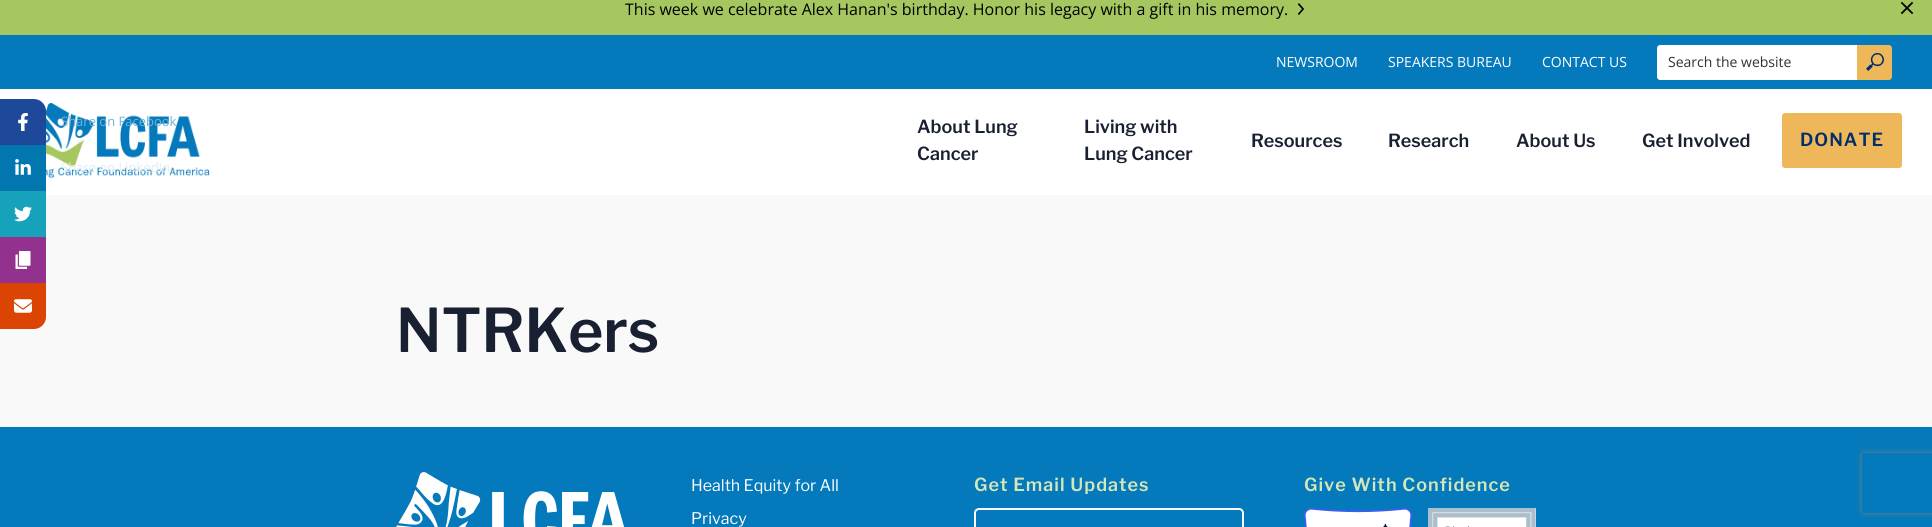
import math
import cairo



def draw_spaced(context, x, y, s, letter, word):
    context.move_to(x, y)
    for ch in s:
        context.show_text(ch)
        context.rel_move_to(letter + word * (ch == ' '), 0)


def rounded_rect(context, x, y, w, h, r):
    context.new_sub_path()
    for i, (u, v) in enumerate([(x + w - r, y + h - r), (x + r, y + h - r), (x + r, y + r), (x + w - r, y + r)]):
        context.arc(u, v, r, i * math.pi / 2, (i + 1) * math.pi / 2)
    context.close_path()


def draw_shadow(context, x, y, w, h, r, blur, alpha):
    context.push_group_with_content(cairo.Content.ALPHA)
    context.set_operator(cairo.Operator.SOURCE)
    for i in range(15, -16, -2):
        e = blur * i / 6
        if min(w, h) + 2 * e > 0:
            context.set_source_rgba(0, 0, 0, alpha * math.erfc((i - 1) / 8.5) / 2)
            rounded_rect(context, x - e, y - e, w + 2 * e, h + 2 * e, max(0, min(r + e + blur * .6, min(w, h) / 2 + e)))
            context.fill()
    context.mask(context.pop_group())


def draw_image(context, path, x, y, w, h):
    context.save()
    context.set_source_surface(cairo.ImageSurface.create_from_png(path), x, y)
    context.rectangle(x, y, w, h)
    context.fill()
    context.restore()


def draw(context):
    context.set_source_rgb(1, 1, 1)
    context.paint()
    context.set_source_rgb(166 / 255, 199 / 255, 95 / 255)
    context.rectangle(0, 0, 1932, 35)
    context.fill()
    draw_image(context, "images/1.png", 1297, 3, 8, 12)
    draw_image(context, "images/2.png", 1900, 1, 14, 14)
    context.set_source_rgb(30 / 255, 72 / 255, 153 / 255)
    context.new_path()
    context.move_to(0, 99)
    context.line_to(34, 99)
    context.curve_to(40.5, 99, 46, 104.5, 46, 111)
    context.line_to(46, 145)
    context.line_to(0, 145)
    context.close_path()
    context.fill()
    draw_image(context, "images/3.png", 18, 113, 10, 18)
    context.set_source_rgb(1 / 255, 118 / 255, 175 / 255)
    context.rectangle(0, 145, 46, 46)
    context.fill()
    draw_image(context, "images/4.png", 15, 159, 16, 16)
    context.set_source_rgb(249 / 255, 249 / 255, 249 / 255)
    context.rectangle(0, 195, 1932, 232)
    context.fill()
    context.set_source_rgb(22 / 255, 162 / 255, 187 / 255)
    context.rectangle(0, 191, 46, 46)
    context.fill()
    draw_image(context, "images/5.png", 14, 206, 18, 16)
    context.set_source_rgb(147 / 255, 50 / 255, 142 / 255)
    context.rectangle(0, 237, 46, 46)
    context.fill()
    draw_image(context, "images/6.png", 15, 251, 16, 18)
    context.set_source_rgb(220 / 255, 68 / 255, 4 / 255)
    context.new_path()
    context.move_to(0, 283)
    context.line_to(46, 283)
    context.line_to(46, 317)
    context.curve_to(46, 323.5, 40.5, 329, 34, 329)
    context.line_to(0, 329)
    context.close_path()
    context.fill()
    draw_image(context, "images/7.png", 14, 299, 18, 14)
    draw_image(context, "images/8.png", 46, 103, 164, 75)
    context.set_source_rgb(4 / 255, 121 / 255, 187 / 255)
    context.rectangle(0, 35, 1932, 54)
    context.fill()
    context.set_source_rgb(1, 1, 1)
    context.new_path()
    context.move_to(1660, 45)
    context.line_to(1857, 45)
    context.line_to(1857, 80)
    context.line_to(1660, 80)
    context.curve_to(1658.5, 80, 1657, 78.5, 1657, 77)
    context.line_to(1657, 48)
    context.curve_to(1657, 46.5, 1658.5, 45, 1660, 45)
    context.close_path()
    context.fill()
    context.set_source_rgb(238 / 255, 183 / 255, 89 / 255)
    context.new_path()
    context.move_to(1857, 45)
    context.line_to(1889, 45)
    context.curve_to(1890.5, 45, 1892, 46.5, 1892, 48)
    context.line_to(1892, 77)
    context.curve_to(1892, 78.5, 1890.5, 80, 1889, 80)
    context.line_to(1857, 80)
    context.close_path()
    context.fill()
    draw_image(context, "images/9.png", 1866, 53, 18, 18)
    rounded_rect(context, 1782, 113, 120, 55, 3)
    context.fill()
    context.set_source_rgb(4 / 255, 121 / 255, 187 / 255)
    context.rectangle(0, 427, 1932, 100)
    context.fill()
    draw_image(context, "images/10.png", 396, 472, 229, 55)
    rounded_rect(context, 975, 509, 268, 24, 4)
    context.set_source_rgb(249 / 255, 249 / 255, 249 / 255)
    context.stroke()
    context.save()
    context.set_fill_rule(cairo.FillRule.EVEN_ODD)
    context.new_path()
    context.move_to(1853, 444)
    context.line_to(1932, 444)
    context.line_to(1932, 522)
    context.line_to(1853, 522)
    context.close_path()
    context.move_to(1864, 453)
    context.line_to(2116, 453)
    context.curve_to(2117, 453, 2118, 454, 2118, 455)
    context.line_to(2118, 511)
    context.curve_to(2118, 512, 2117, 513, 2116, 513)
    context.line_to(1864, 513)
    context.curve_to(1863, 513, 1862, 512, 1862, 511)
    context.line_to(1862, 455)
    context.curve_to(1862, 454, 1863, 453, 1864, 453)
    context.close_path()
    context.clip()
    context.set_source_rgb(128 / 255, 128 / 255, 128 / 255)
    draw_shadow(context, 1862, 453, 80, 60, 2, 2.5, 1)
    context.restore()
    draw_image(context, "images/11.png", 1304, 508, 108, 19)
    draw_image(context, "images/12.png", 1428, 508, 108, 19)
    context.select_font_face("Open Sans")
    context.set_font_size(16)
    context.set_source_rgb(0, 0, 0)
    context.move_to(625, 15)
    context.show_text("This week we celebrate Alex Hanan's birthday. Honor his legacy with a gift in his memory.")
    context.set_font_size(13)
    context.set_source_rgb(114 / 255, 179 / 255, 217 / 255)
    context.move_to(61, 126)
    context.show_text("Share on Facebook")
    context.set_source_rgb(224 / 255, 238 / 255, 242 / 255)
    context.move_to(61, 172)
    context.show_text("Share on LinkedIn")
    context.set_font_size(14)
    context.set_source_rgb(1, 1, 1)
    context.move_to(1276, 67)
    context.show_text("NEWSROOM")
    context.move_to(1388, 67)
    context.show_text("SPEAKERS BUREAU")
    context.move_to(1542, 67)
    context.show_text("CONTACT US")
    context.set_source_rgb(49 / 255, 49 / 255, 49 / 255)
    context.move_to(1668, 67)
    context.show_text("Search the website")
    context.select_font_face("Libre Franklin SemiBold")
    context.set_font_size(18)
    context.set_source_rgb(24 / 255, 32 / 255, 49 / 255)
    context.move_to(917, 133)
    context.show_text("About Lung")
    context.move_to(917, 160)
    context.show_text("Cancer")
    context.move_to(1084, 133)
    context.show_text("Living with")
    context.move_to(1084, 160)
    context.show_text("Lung Cancer")
    context.move_to(1251, 147)
    context.show_text("Resources")
    context.move_to(1388, 147)
    context.show_text("Research")
    context.move_to(1516, 147)
    context.show_text("About Us")
    context.move_to(1642, 147)
    context.show_text("Get Involved")
    context.set_source_rgb(0, 46 / 255, 107 / 255)
    draw_spaced(context, 1800, 146, "DONATE", 1, 0)
    context.set_font_size(60)
    context.set_source_rgb(24 / 255, 32 / 255, 49 / 255)
    context.move_to(396, 352)
    context.show_text("NTRKers")
    context.select_font_face("Libre Franklin")
    context.set_font_size(16)
    context.set_source_rgb(1, 1, 1)
    context.move_to(691, 491)
    context.show_text("Health Equity for All")
    context.move_to(691, 524)
    context.show_text("Privacy")
    context.select_font_face("Libre Franklin SemiBold")
    context.set_font_size(18)
    context.set_source_rgb(213 / 255, 231 / 255, 184 / 255)
    draw_spaced(context, 974, 491, "Get Email Updates", 1, 0)
    draw_spaced(context, 1304, 491, "Give With Confidence", 1, 0)


surface = cairo.ImageSurface(cairo.Format.RGB24, 1932, 527)
context = cairo.Context(surface)
options = cairo.FontOptions()
options.set_hint_metrics(cairo.HintMetrics.OFF)
options.set_hint_style(cairo.HintStyle.NONE)
context.set_font_options(options)
context.set_miter_limit(4)
draw(context)
surface.write_to_png("out.png")
